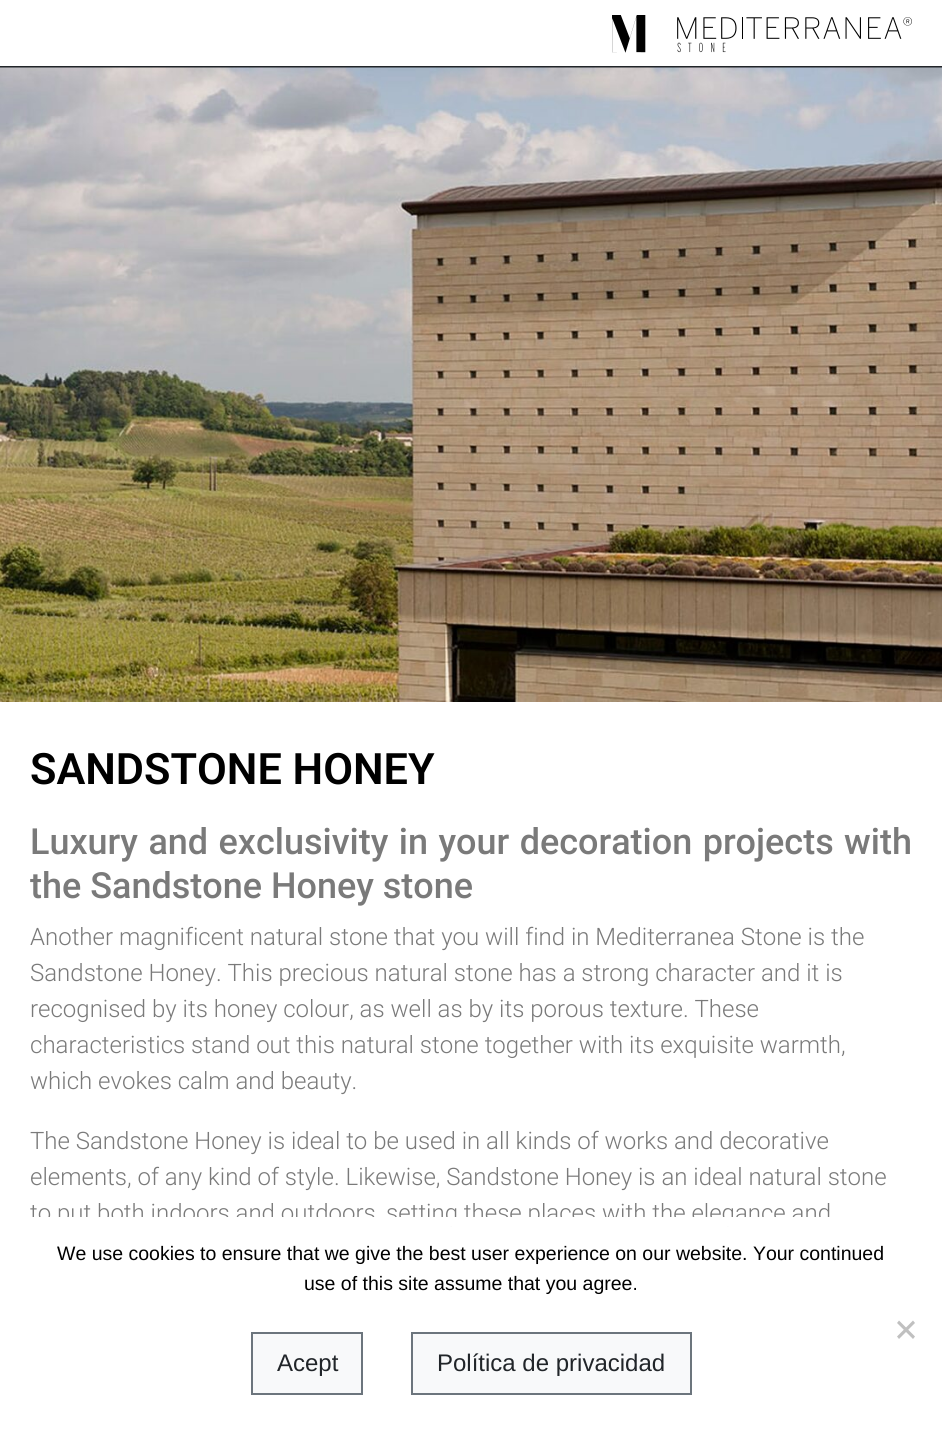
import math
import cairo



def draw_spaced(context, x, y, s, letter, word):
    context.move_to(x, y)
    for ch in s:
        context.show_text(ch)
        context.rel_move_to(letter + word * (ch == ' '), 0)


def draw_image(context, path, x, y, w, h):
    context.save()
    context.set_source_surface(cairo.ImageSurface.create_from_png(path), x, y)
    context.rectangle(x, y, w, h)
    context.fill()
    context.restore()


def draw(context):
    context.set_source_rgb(1, 1, 1)
    context.paint()
    context.set_source_rgb(33 / 255, 37 / 255, 41 / 255)
    context.rectangle(0, 66, 942, 2)
    context.fill()
    draw_image(context, "images/1.png", 612, 15, 300, 38)
    draw_image(context, "images/2.png", 0, 67, 942, 635)
    context.set_source_rgb(192 / 255, 192 / 255, 192 / 255)
    context.new_path()
    context.move_to(913, 1320.5)
    context.line_to(915, 1323)
    context.line_to(899, 1339)
    context.line_to(897, 1336.5)
    context.close_path()
    context.fill()
    context.new_path()
    context.move_to(897, 1323)
    context.line_to(899, 1320.5)
    context.line_to(915, 1336.5)
    context.line_to(913, 1339)
    context.close_path()
    context.fill()
    context.set_source_rgb(248 / 255, 249 / 255, 250 / 255)
    context.rectangle(252, 1333, 110, 61)
    context.fill_preserve()
    context.set_source_rgb(108 / 255, 117 / 255, 125 / 255)
    context.stroke()
    context.set_source_rgb(248 / 255, 249 / 255, 250 / 255)
    context.rectangle(412, 1333, 279, 61)
    context.fill_preserve()
    context.set_source_rgb(108 / 255, 117 / 255, 125 / 255)
    context.stroke()
    context.select_font_face("Roboto SemiBold")
    context.set_font_size(43.25)
    context.set_source_rgb(0, 0, 0)
    context.move_to(30, 784)
    context.show_text("SANDSTONE HONEY")
    context.select_font_face("Roboto Medium")
    context.set_font_size(36)
    context.set_source_rgb(122 / 255, 122 / 255, 122 / 255)
    draw_spaced(context, 30, 854, "Luxury and exclusivity in your decoration projects with", 0, 1.5)
    context.move_to(30, 898)
    context.show_text("the Sandstone Honey stone")
    context.select_font_face("Roboto Light")
    context.set_font_size(24)
    context.move_to(30, 945)
    context.show_text("Another magnificent natural stone that you will find in Mediterranea Stone is the")
    context.move_to(30, 981)
    context.show_text("Sandstone Honey. This precious natural stone has a strong character and it is")
    context.move_to(30, 1017)
    context.show_text("recognised by its honey colour, as well as by its porous texture. These")
    context.move_to(30, 1053)
    context.show_text("characteristics stand out this natural stone together with its exquisite warmth,")
    context.move_to(30, 1089)
    context.show_text("which evokes calm and beauty.")
    context.move_to(30, 1149)
    context.show_text("The Sandstone Honey is ideal to be used in all kinds of works and decorative")
    context.move_to(30, 1185)
    context.show_text("elements, of any kind of style. Likewise, Sandstone Honey is an ideal natural stone")
    context.move_to(30, 1221)
    context.show_text("to put both indoors and outdoors, setting these places with the elegance and")
    context.set_source_rgb(1, 1, 1)
    context.rectangle(32, 1217, 798, 9)
    context.fill()
    context.select_font_face("Liberation Sans")
    context.set_font_size(19.5)
    context.set_source_rgb(0, 0, 0)
    context.move_to(57, 1260)
    context.show_text("We use cookies to ensure that we give the best user experience on our website. Your continued")
    context.move_to(304, 1290)
    context.show_text("use of this site assume that you agree.")
    context.set_font_size(24)
    context.set_source_rgb(33 / 255, 37 / 255, 41 / 255)
    context.move_to(277, 1371)
    context.show_text("Acept")
    context.move_to(437, 1371)
    context.show_text("Política de privacidad")


surface = cairo.ImageSurface(cairo.Format.RGB24, 942, 1441)
context = cairo.Context(surface)
options = cairo.FontOptions()
options.set_hint_metrics(cairo.HintMetrics.OFF)
options.set_hint_style(cairo.HintStyle.NONE)
context.set_font_options(options)
context.set_miter_limit(4)
draw(context)
surface.write_to_png("out.png")
